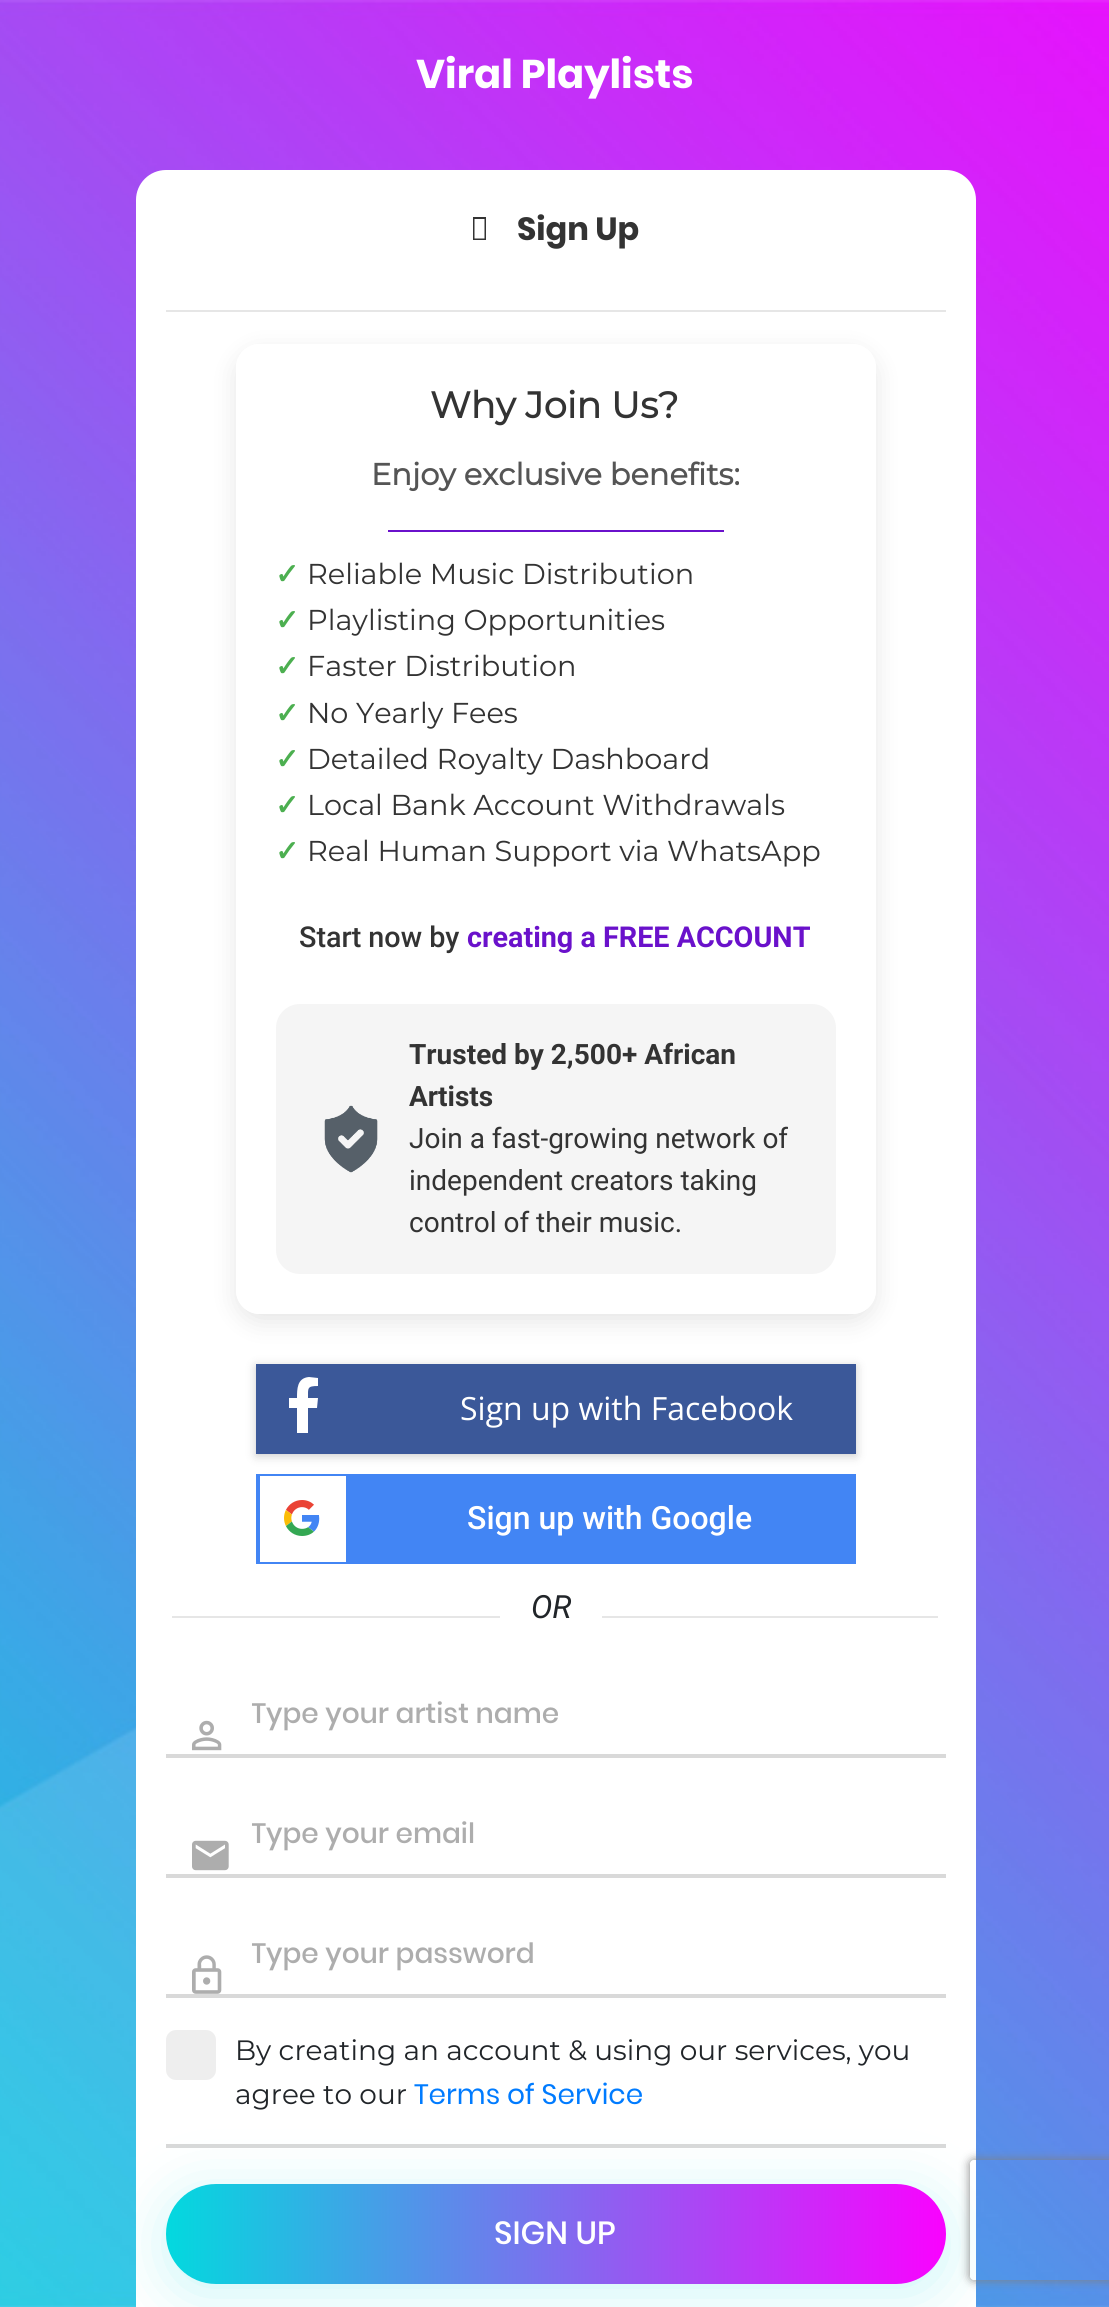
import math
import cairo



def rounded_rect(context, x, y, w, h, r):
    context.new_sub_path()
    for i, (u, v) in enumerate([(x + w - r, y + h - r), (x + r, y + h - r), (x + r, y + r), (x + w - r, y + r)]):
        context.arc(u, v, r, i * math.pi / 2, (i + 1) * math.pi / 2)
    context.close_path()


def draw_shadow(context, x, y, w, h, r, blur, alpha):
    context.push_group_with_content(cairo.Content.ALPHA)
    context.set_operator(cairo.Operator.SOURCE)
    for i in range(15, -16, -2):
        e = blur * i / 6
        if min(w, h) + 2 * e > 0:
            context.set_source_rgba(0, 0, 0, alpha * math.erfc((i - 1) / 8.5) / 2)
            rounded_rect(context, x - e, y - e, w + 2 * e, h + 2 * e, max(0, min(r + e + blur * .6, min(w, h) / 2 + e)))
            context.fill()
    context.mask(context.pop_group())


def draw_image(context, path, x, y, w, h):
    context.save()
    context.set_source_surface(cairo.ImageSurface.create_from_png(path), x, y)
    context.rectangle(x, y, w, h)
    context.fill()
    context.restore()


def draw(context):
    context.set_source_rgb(1, 1, 1)
    context.paint()
    draw_image(context, "images/1.png", 0, 0, 1109, 2307)
    context.set_source_rgb(1, 1, 1)
    rounded_rect(context, 136, 170, 840, 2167, 30)
    context.fill()
    context.set_source_rgb(51 / 255, 51 / 255, 51 / 255)
    context.new_path()
    context.move_to(473, 240)
    context.line_to(473, 217)
    context.line_to(486, 217)
    context.line_to(486, 240)
    context.close_path()
    context.move_to(474.5, 238.5)
    context.line_to(484.5, 238.5)
    context.line_to(484.5, 219)
    context.line_to(474.5, 219)
    context.close_path()
    context.fill()
    context.set_source_rgb(230 / 255, 230 / 255, 230 / 255)
    context.rectangle(166, 310, 780, 2)
    context.fill()
    context.save()
    context.set_fill_rule(cairo.FillRule.EVEN_ODD)
    context.new_path()
    context.move_to(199, 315)
    context.line_to(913, 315)
    context.line_to(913, 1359)
    context.line_to(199, 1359)
    context.close_path()
    context.move_to(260, 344)
    context.line_to(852, 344)
    context.curve_to(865.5, 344, 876, 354.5, 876, 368)
    context.line_to(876, 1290)
    context.curve_to(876, 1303.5, 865.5, 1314, 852, 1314)
    context.line_to(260, 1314)
    context.curve_to(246.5, 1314, 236, 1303.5, 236, 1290)
    context.line_to(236, 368)
    context.curve_to(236, 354.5, 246.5, 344, 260, 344)
    context.close_path()
    context.clip()
    context.set_source_rgb(0, 0, 0)
    draw_shadow(context, 236, 352, 640, 970, 24, 12, 0.1)
    context.restore()
    context.set_source_rgba(1, 1, 1, 0.85)
    rounded_rect(context, 236, 344, 640, 970, 24)
    context.fill()
    context.set_source_rgb(106 / 255, 17 / 255, 203 / 255)
    context.rectangle(388, 530, 336, 2)
    context.fill()
    context.set_source_rgb(245 / 255, 245 / 255, 245 / 255)
    rounded_rect(context, 276, 1004, 560, 270, 24)
    context.fill()
    draw_image(context, "images/2.png", 324, 1105, 54, 68)
    context.set_source_rgb(0, 0, 0)
    draw_shadow(context, 256, 1366, 600, 90, 0, 5, 0.2)
    context.set_source_rgb(59 / 255, 88 / 255, 153 / 255)
    context.rectangle(256, 1364, 600, 90)
    context.fill()
    context.set_source_rgb(1, 1, 1)
    context.new_path()
    context.move_to(317, 1408)
    context.line_to(318, 1398)
    context.line_to(308, 1398)
    context.curve_to(308, 1388, 307, 1386, 318, 1386)
    context.line_to(318, 1378)
    context.line_to(309, 1377)
    context.curve_to(297, 1378, 297, 1389, 297, 1398)
    context.line_to(289, 1398)
    context.line_to(289, 1408)
    context.line_to(297, 1408)
    context.line_to(297, 1433)
    context.line_to(308, 1433)
    context.line_to(308, 1408)
    context.close_path()
    context.fill()
    context.set_source_rgb(66 / 255, 133 / 255, 244 / 255)
    context.rectangle(256, 1474, 600, 90)
    context.fill()
    context.set_source_rgb(1, 1, 1)
    context.rectangle(260, 1476, 86, 86)
    context.fill()
    draw_image(context, "images/3.png", 284, 1500, 36, 36)
    context.set_source_rgb(230 / 255, 230 / 255, 230 / 255)
    context.rectangle(172, 1616, 328, 2)
    context.fill()
    context.rectangle(602, 1616, 336, 2)
    context.fill()
    context.set_source_rgb(217 / 255, 217 / 255, 217 / 255)
    context.rectangle(166, 1754, 780, 4)
    context.fill()
    draw_image(context, "images/4.png", 192, 1720, 30, 31)
    context.rectangle(166, 1874, 780, 4)
    context.fill()
    draw_image(context, "images/5.png", 192, 1840, 37, 31)
    context.rectangle(166, 1994, 780, 4)
    context.fill()
    draw_image(context, "images/6.png", 192, 1955, 30, 39)
    context.rectangle(166, 2144, 780, 4)
    context.fill()
    context.set_source_rgb(238 / 255, 238 / 255, 238 / 255)
    rounded_rect(context, 166, 2030, 50, 50, 10)
    context.fill()
    context.save()
    rounded_rect(context, 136, 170, 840, 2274, 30)
    context.clip()
    context.set_source_rgb(3 / 255, 216 / 255, 222 / 255)
    draw_shadow(context, 166, 2194, 780, 100, 50, 30, 0.2)
    context.restore()
    gradient = cairo.LinearGradient(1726, 2234, -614, 2234)
    gradient.add_color_stop_rgba(0, 0, 219 / 255, 222 / 255, 1)
    gradient.add_color_stop_rgba(0.33, 252 / 255, 0, 1, 1)
    gradient.add_color_stop_rgba(0.67, 0, 219 / 255, 222 / 255, 1)
    gradient.add_color_stop_rgba(1, 252 / 255, 0, 1, 1)
    context.set_source(gradient)
    rounded_rect(context, 166, 2184, 780, 100, 50)
    context.fill()
    context.save()
    context.set_fill_rule(cairo.FillRule.EVEN_ODD)
    context.new_path()
    context.move_to(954, 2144)
    context.line_to(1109, 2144)
    context.line_to(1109, 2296)
    context.line_to(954, 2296)
    context.close_path()
    context.move_to(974, 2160)
    context.line_to(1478, 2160)
    context.curve_to(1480, 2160, 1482, 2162, 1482, 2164)
    context.line_to(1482, 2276)
    context.curve_to(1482, 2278, 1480, 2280, 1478, 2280)
    context.line_to(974, 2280)
    context.curve_to(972, 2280, 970, 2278, 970, 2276)
    context.line_to(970, 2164)
    context.curve_to(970, 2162, 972, 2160, 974, 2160)
    context.close_path()
    context.clip()
    context.set_source_rgb(128 / 255, 128 / 255, 128 / 255)
    draw_shadow(context, 970, 2160, 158, 120, 4, 5, 1)
    context.restore()
    context.select_font_face("Poppins", cairo.FontSlant.NORMAL, cairo.FontWeight.BOLD)
    context.set_font_size(40)
    context.set_source_rgb(1, 1, 1)
    context.move_to(416, 88)
    context.show_text("Viral Playlists")
    context.set_font_size(32)
    context.set_source_rgb(51 / 255, 51 / 255, 51 / 255)
    context.move_to(517, 240)
    context.show_text("Sign Up")
    context.select_font_face("Montserrat", cairo.FontSlant.NORMAL, cairo.FontWeight.BOLD)
    context.set_font_size(36.75)
    context.move_to(430, 418)
    context.show_text("Why Join Us?")
    context.set_font_size(30.4)
    context.set_source_rgb(85 / 255, 85 / 255, 85 / 255)
    context.move_to(371, 485)
    context.show_text("Enjoy exclusive benefits:")
    context.select_font_face("DejaVu Sans", cairo.FontSlant.NORMAL, cairo.FontWeight.BOLD)
    context.set_font_size(28.75)
    context.set_source_rgb(76 / 255, 175 / 255, 80 / 255)
    context.move_to(275, 584)
    context.show_text("✓")
    context.select_font_face("Montserrat Thin")
    context.set_source_rgb(51 / 255, 51 / 255, 51 / 255)
    context.move_to(307, 584)
    context.show_text("Reliable Music Distribution")
    context.select_font_face("DejaVu Sans", cairo.FontSlant.NORMAL, cairo.FontWeight.BOLD)
    context.set_source_rgb(76 / 255, 175 / 255, 80 / 255)
    context.move_to(275, 630)
    context.show_text("✓")
    context.select_font_face("Montserrat Thin")
    context.set_source_rgb(51 / 255, 51 / 255, 51 / 255)
    context.move_to(307, 630)
    context.show_text("Playlisting Opportunities")
    context.select_font_face("DejaVu Sans", cairo.FontSlant.NORMAL, cairo.FontWeight.BOLD)
    context.set_source_rgb(76 / 255, 175 / 255, 80 / 255)
    context.move_to(275, 676)
    context.show_text("✓")
    context.select_font_face("Montserrat Thin")
    context.set_source_rgb(51 / 255, 51 / 255, 51 / 255)
    context.move_to(307, 676)
    context.show_text("Faster Distribution")
    context.select_font_face("DejaVu Sans", cairo.FontSlant.NORMAL, cairo.FontWeight.BOLD)
    context.set_source_rgb(76 / 255, 175 / 255, 80 / 255)
    context.move_to(275, 723)
    context.show_text("✓")
    context.select_font_face("Montserrat Thin")
    context.set_source_rgb(51 / 255, 51 / 255, 51 / 255)
    context.move_to(307, 723)
    context.show_text("No Yearly Fees")
    context.select_font_face("DejaVu Sans", cairo.FontSlant.NORMAL, cairo.FontWeight.BOLD)
    context.set_source_rgb(76 / 255, 175 / 255, 80 / 255)
    context.move_to(275, 769)
    context.show_text("✓")
    context.select_font_face("Montserrat Thin")
    context.set_source_rgb(51 / 255, 51 / 255, 51 / 255)
    context.move_to(307, 769)
    context.show_text("Detailed Royalty Dashboard")
    context.select_font_face("DejaVu Sans", cairo.FontSlant.NORMAL, cairo.FontWeight.BOLD)
    context.set_source_rgb(76 / 255, 175 / 255, 80 / 255)
    context.move_to(275, 815)
    context.show_text("✓")
    context.select_font_face("Montserrat Thin")
    context.set_source_rgb(51 / 255, 51 / 255, 51 / 255)
    context.move_to(307, 815)
    context.show_text("Local Bank Account Withdrawals")
    context.select_font_face("DejaVu Sans", cairo.FontSlant.NORMAL, cairo.FontWeight.BOLD)
    context.set_source_rgb(76 / 255, 175 / 255, 80 / 255)
    context.move_to(275, 861)
    context.show_text("✓")
    context.select_font_face("Montserrat Thin")
    context.set_source_rgb(51 / 255, 51 / 255, 51 / 255)
    context.move_to(307, 861)
    context.show_text("Real Human Support via WhatsApp")
    context.select_font_face("Roboto Medium")
    context.move_to(299, 947)
    context.show_text("Start now by")
    context.select_font_face("Roboto", cairo.FontSlant.NORMAL, cairo.FontWeight.BOLD)
    context.set_source_rgb(106 / 255, 17 / 255, 203 / 255)
    context.move_to(467, 947)
    context.show_text("creating a FREE ACCOUNT")
    context.set_font_size(28)
    context.set_source_rgb(51 / 255, 51 / 255, 51 / 255)
    context.move_to(409, 1064)
    context.show_text("Trusted by 2,500+ African")
    context.move_to(409, 1106)
    context.show_text("Artists")
    context.select_font_face("Roboto")
    context.move_to(409, 1148)
    context.show_text("Join a fast-growing network of")
    context.move_to(409, 1190)
    context.show_text("independent creators taking")
    context.move_to(409, 1232)
    context.show_text("control of their music.")
    context.select_font_face("Open Sans")
    context.set_font_size(32)
    context.set_source_rgb(1, 1, 1)
    context.move_to(460, 1420)
    context.show_text("Sign up with Facebook")
    context.select_font_face("Roboto Medium")
    context.move_to(467, 1529)
    context.show_text("Sign up with Google")
    context.select_font_face("Roboto", cairo.FontSlant.ITALIC)
    context.set_source_rgb(33 / 255, 37 / 255, 41 / 255)
    context.move_to(531, 1618)
    context.show_text("OR")
    context.save()
    context.rectangle(252, 1692, 680, 42)
    context.clip()
    context.select_font_face("Poppins Medium")
    context.set_font_size(28)
    context.set_source_rgb(173 / 255, 173 / 255, 173 / 255)
    context.move_to(251, 1723)
    context.show_text("Type your artist name")
    context.restore()
    context.save()
    context.rectangle(252, 1812, 680, 42)
    context.clip()
    context.select_font_face("Poppins Medium")
    context.set_font_size(28)
    context.set_source_rgb(173 / 255, 173 / 255, 173 / 255)
    context.move_to(251, 1843)
    context.show_text("Type your email")
    context.restore()
    context.save()
    context.rectangle(252, 1932, 680, 42)
    context.clip()
    context.select_font_face("Poppins Medium")
    context.set_font_size(28)
    context.set_source_rgb(173 / 255, 173 / 255, 173 / 255)
    context.move_to(251, 1963)
    context.show_text("Type your password")
    context.restore()
    context.select_font_face("Montserrat Thin")
    context.set_font_size(28)
    context.move_to(235, 2060)
    context.show_text("By creating an account & using our services, you")
    context.move_to(235, 2104)
    context.show_text("agree to our")
    context.select_font_face("Poppins")
    context.set_source_rgb(0, 123 / 255, 1)
    context.move_to(414, 2104)
    context.show_text("Terms of Service")
    context.select_font_face("Poppins Medium")
    context.set_font_size(32)
    context.set_source_rgb(1, 1, 1)
    context.move_to(494, 2244)
    context.show_text("SIGN UP")


surface = cairo.ImageSurface(cairo.Format.RGB24, 1109, 2307)
context = cairo.Context(surface)
options = cairo.FontOptions()
options.set_hint_metrics(cairo.HintMetrics.OFF)
options.set_hint_style(cairo.HintStyle.NONE)
context.set_font_options(options)
context.set_miter_limit(4)
draw(context)
surface.write_to_png("out.png")
